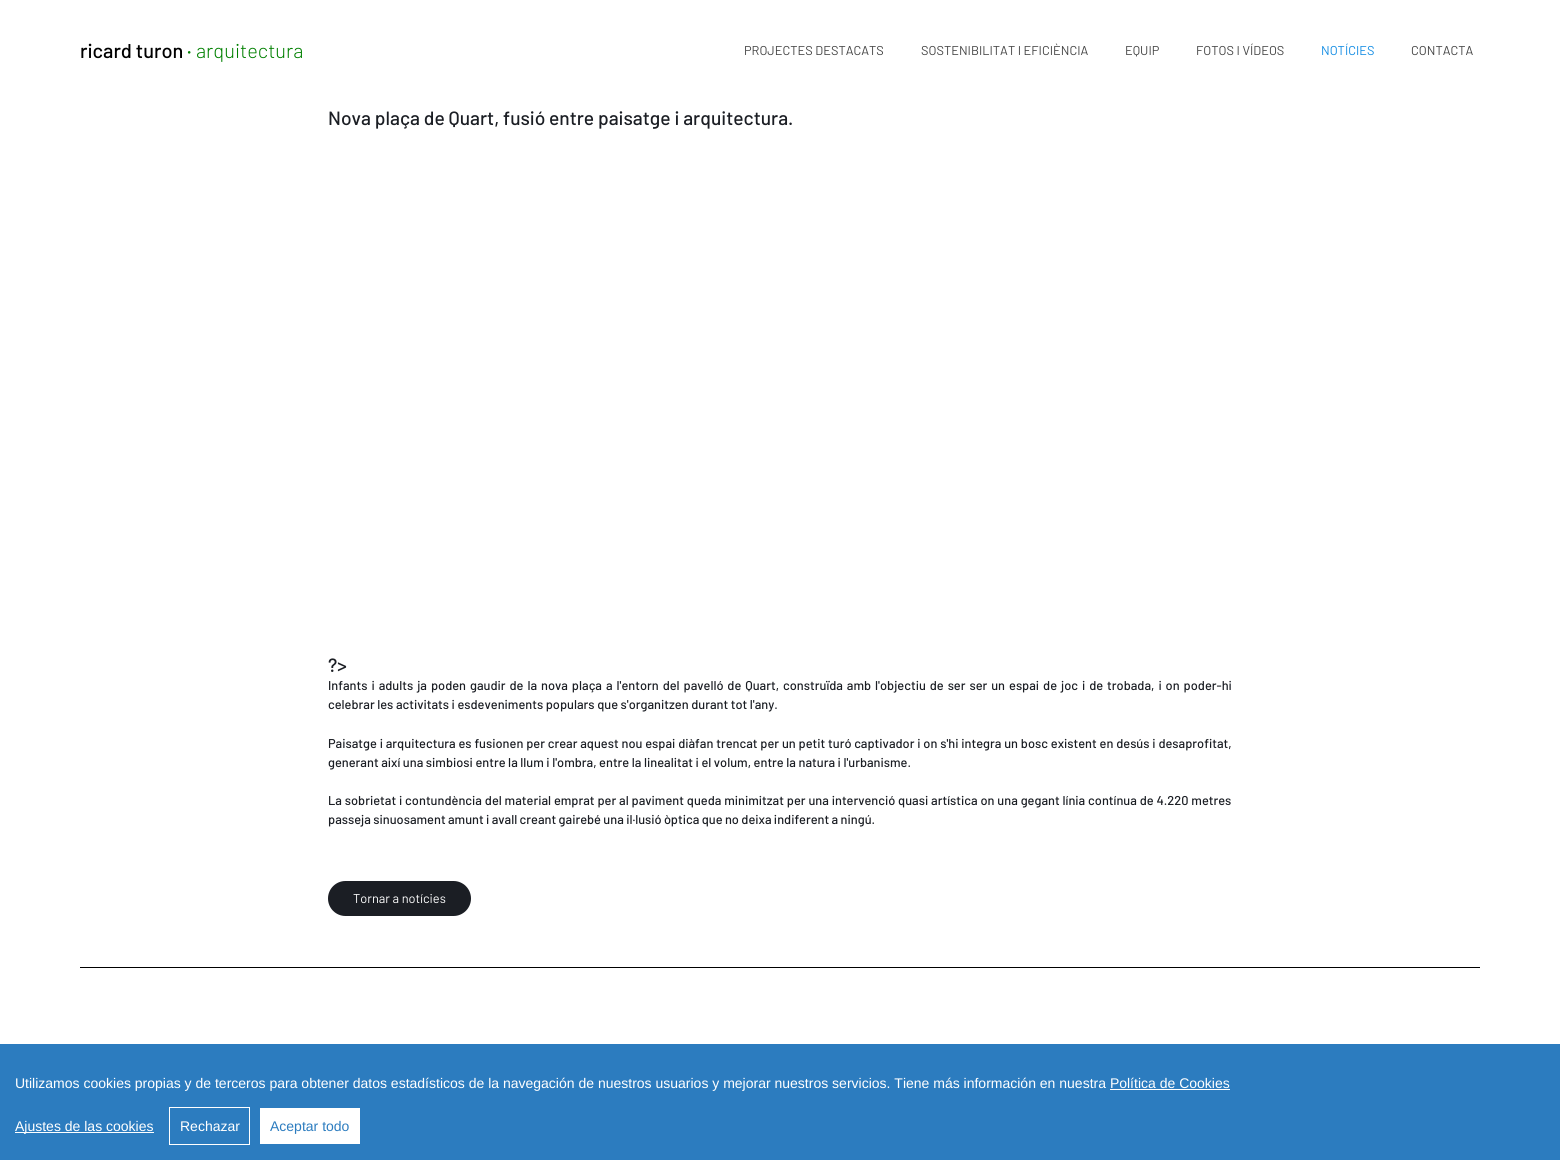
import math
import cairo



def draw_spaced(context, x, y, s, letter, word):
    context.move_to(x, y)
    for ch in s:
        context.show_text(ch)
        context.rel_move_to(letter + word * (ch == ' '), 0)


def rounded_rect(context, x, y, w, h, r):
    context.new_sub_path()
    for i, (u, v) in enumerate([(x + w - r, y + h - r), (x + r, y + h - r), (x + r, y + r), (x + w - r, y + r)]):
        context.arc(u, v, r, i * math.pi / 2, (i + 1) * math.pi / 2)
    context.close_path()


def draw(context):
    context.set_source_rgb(1, 1, 1)
    context.paint()
    context.set_source_rgb(27 / 255, 30 / 255, 36 / 255)
    rounded_rect(context, 328, 881, 143, 35, 17.5)
    context.fill()
    context.set_source_rgb(0, 0, 0)
    context.rectangle(80, 967, 1400, 1)
    context.fill()
    context.set_source_rgb(44 / 255, 124 / 255, 191 / 255)
    context.rectangle(0, 1044, 1560, 116)
    context.fill()
    context.set_source_rgb(1, 1, 1)
    context.rectangle(1110, 1089, 120, 1)
    context.fill()
    context.rectangle(15, 1132, 139, 1)
    context.fill()
    context.rectangle(169.5, 1107.5, 80, 37)
    context.set_line_width(1)
    context.stroke()
    context.rectangle(260, 1108, 100, 36)
    context.fill()
    context.select_font_face("Barlow Medium")
    context.set_font_size(20)
    context.set_source_rgb(0, 0, 0)
    context.move_to(80, 58)
    context.show_text("ricard turon")
    context.set_source_rgb(0, 128 / 255, 0)
    context.move_to(187, 58)
    context.show_text("·")
    context.select_font_face("Barlow Light")
    context.move_to(196, 58)
    context.show_text("arquitectura")
    context.select_font_face("Barlow")
    context.set_font_size(12.8)
    context.set_source_rgb(68 / 255, 68 / 255, 68 / 255)
    context.move_to(744, 55)
    context.show_text("PROJECTES DESTACATS")
    context.move_to(921, 55)
    context.show_text("SOSTENIBILITAT I EFICIÈNCIA")
    context.move_to(1125, 55)
    context.show_text("EQUIP")
    context.move_to(1196, 55)
    context.show_text("FOTOS I VÍDEOS")
    context.set_source_rgb(16 / 255, 139 / 255, 227 / 255)
    context.move_to(1321, 55)
    context.show_text("NOTÍCIES")
    context.set_source_rgb(68 / 255, 68 / 255, 68 / 255)
    context.move_to(1411, 55)
    context.show_text("CONTACTA")
    context.select_font_face("Barlow Medium")
    context.set_font_size(19.2)
    context.set_source_rgb(27 / 255, 30 / 255, 36 / 255)
    context.move_to(328, 125)
    context.show_text("Nova plaça de Quart, fusió entre paisatge i arquitectura.")
    context.move_to(328, 672)
    context.show_text("?>")
    context.set_font_size(12.8)
    draw_spaced(context, 328, 690, "Infants i adults ja poden gaudir de la nova plaça a l'entorn del pavelló de Quart, construïda amb l'objectiu de ser ser un espai de joc i de trobada, i on poder-hi", 0, 1.4)
    context.move_to(328, 709)
    context.show_text("celebrar les activitats i esdeveniments populars que s'organitzen durant tot l'any.")
    draw_spaced(context, 328, 748, "Paisatge i arquitectura es fusionen per crear aquest nou espai diàfan trencat per un petit turó captivador i on s'hi integra un bosc existent en desús i desaprofitat,", 0, 0.25)
    context.move_to(328, 767)
    context.show_text("generant així una simbiosi entre la llum i l'ombra, entre la linealitat i el volum, entre la natura i l'urbanisme.")
    draw_spaced(context, 328, 805, "La sobrietat i contundència del material emprat per al paviment queda minimitzat per una intervenció quasi artística on una gegant línia contínua de 4.220 metres", 0, 0.3)
    draw_spaced(context, 328, 824, "passeja sinuosament amunt i avall creant gairebé una il·lusió òptica que no deixa indiferent a ningú.", 0, -0.2)
    context.select_font_face("Barlow")
    context.set_source_rgb(1, 1, 1)
    context.move_to(353, 903)
    context.show_text("Tornar a notícies")
    context.select_font_face("Liberation Sans")
    context.set_font_size(14)
    context.move_to(15, 1088)
    context.show_text("Utilizamos cookies propias y de terceros para obtener datos estadísticos de la navegación de nuestros usuarios y mejorar nuestros servicios. Tiene más información en nuestra Política de Cookies")
    context.move_to(15, 1131)
    context.show_text("Ajustes de las cookies")
    context.move_to(180, 1131)
    context.show_text("Rechazar")
    context.set_source_rgb(44 / 255, 124 / 255, 191 / 255)
    context.move_to(270, 1131)
    context.show_text("Aceptar todo")


surface = cairo.ImageSurface(cairo.Format.RGB24, 1560, 1160)
context = cairo.Context(surface)
options = cairo.FontOptions()
options.set_hint_metrics(cairo.HintMetrics.OFF)
options.set_hint_style(cairo.HintStyle.NONE)
context.set_font_options(options)
context.set_miter_limit(4)
draw(context)
surface.write_to_png("out.png")
